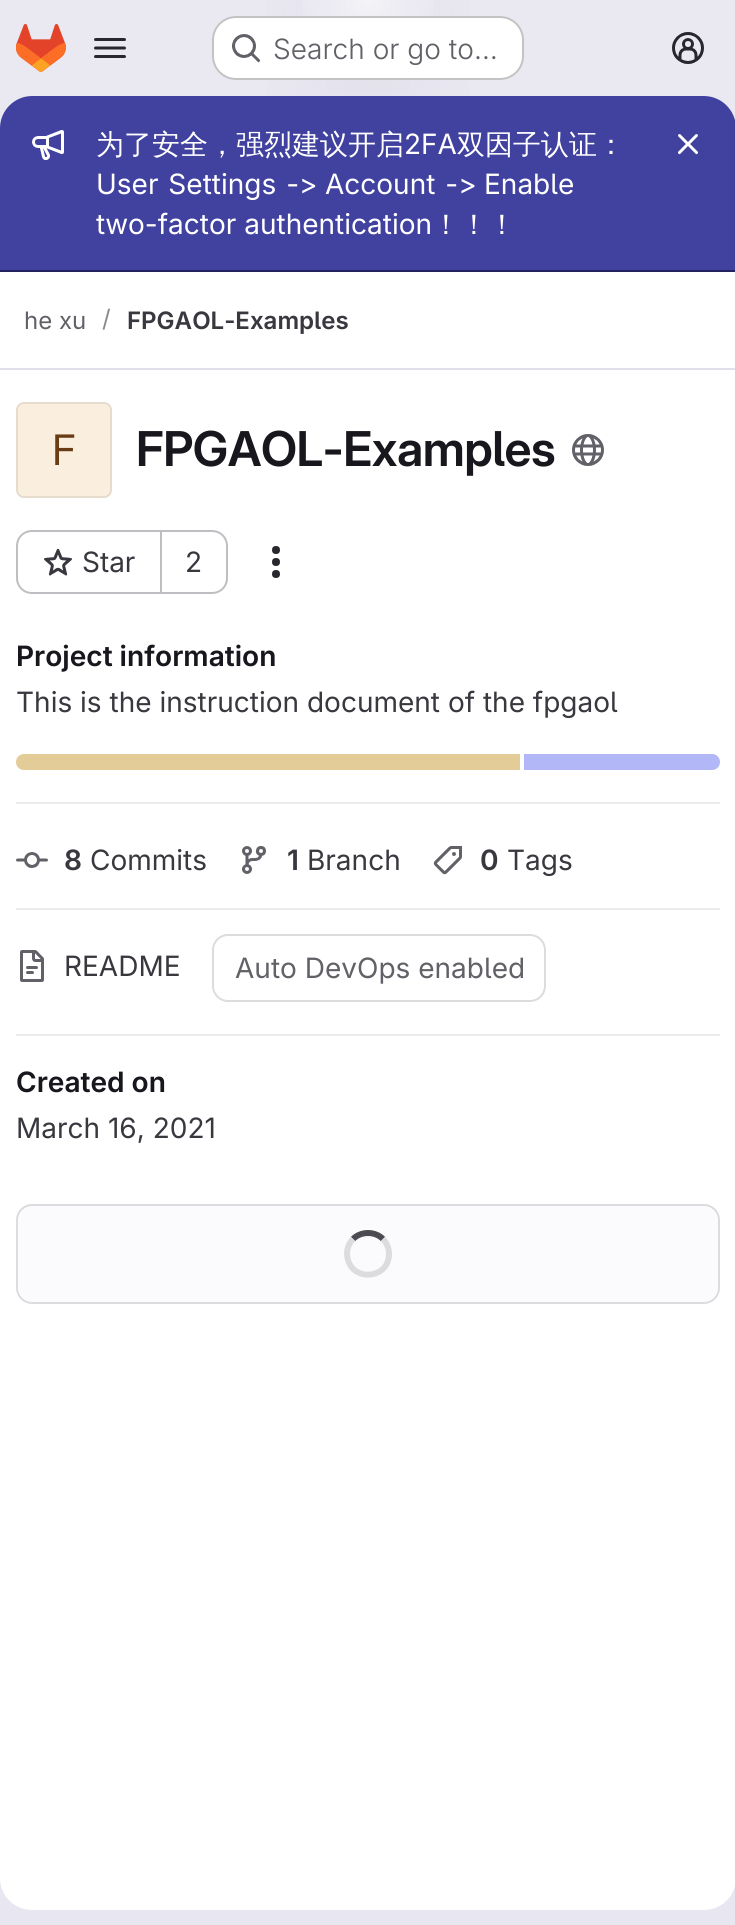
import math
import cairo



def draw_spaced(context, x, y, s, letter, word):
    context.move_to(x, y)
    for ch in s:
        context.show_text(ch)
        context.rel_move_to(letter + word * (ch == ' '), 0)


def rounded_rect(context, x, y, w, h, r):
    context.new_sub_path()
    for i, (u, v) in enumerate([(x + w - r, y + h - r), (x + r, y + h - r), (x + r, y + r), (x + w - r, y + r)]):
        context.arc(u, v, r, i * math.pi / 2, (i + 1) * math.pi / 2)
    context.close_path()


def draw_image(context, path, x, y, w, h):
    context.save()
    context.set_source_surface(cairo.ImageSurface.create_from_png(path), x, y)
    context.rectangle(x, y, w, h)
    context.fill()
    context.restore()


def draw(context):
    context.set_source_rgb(1, 1, 1)
    context.paint()
    gradient = cairo.LinearGradient(544, 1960, 192, -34)
    gradient.add_color_stop_rgba(0, 232 / 255, 230 / 255, 240 / 255, 1)
    gradient.add_color_stop_rgba(0.7, 234 / 255, 233 / 255, 242 / 255, 1)
    context.set_source(gradient)
    context.rectangle(0, 0, 735, 1925)
    context.fill()
    gradient = cairo.RadialGradient(0, 0, 0, 0, 0, 1)
    gradient.set_matrix(cairo.Matrix(1 / 368, 0, 0, 1 / 1926, -1 * 368 / 368, -1 * 0 / 1926))
    gradient.add_color_stop_rgba(0, 228 / 255, 226 / 255, 237 / 255, 1)
    gradient.add_color_stop_rgba(0.38, 228 / 255, 226 / 255, 237 / 255, 0)
    context.set_source(gradient)
    context.rectangle(267, 0, 202, 96)
    context.fill()
    gradient = cairo.RadialGradient(0, 0, 0, 0, 0, 1)
    gradient.set_matrix(cairo.Matrix(1 / 368, 0, 0, 1 / 1926, -1 * 368 / 368, -1 * 0 / 1926))
    gradient.add_color_stop_rgba(0, 228 / 255, 226 / 255, 236 / 255, 1)
    gradient.add_color_stop_rgba(0.27, 228 / 255, 226 / 255, 236 / 255, 0)
    context.set_source(gradient)
    context.rectangle(326, 0, 84, 91)
    context.fill()
    gradient = cairo.RadialGradient(368, 0, 0, 368, 0, 1961)
    gradient.add_color_stop_rgba(0, 1, 1, 1, 0.6)
    gradient.add_color_stop_rgba(0.04, 1, 1, 1, 0)
    context.set_source(gradient)
    context.rectangle(302, 0, 132, 16)
    context.fill()
    draw_image(context, "images/1.png", 16, 24, 50, 48)
    draw_image(context, "images/2.png", 94, 38, 32, 20)
    context.set_source_rgb(1, 1, 1)
    rounded_rect(context, 212, 16, 312, 64, 24)
    context.fill()
    rounded_rect(context, 213, 17, 310, 62, 23)
    context.set_source_rgba(5 / 255, 5 / 255, 6 / 255, 0.24)
    context.stroke()
    draw_image(context, "images/3.png", 232, 34, 29, 29)
    draw_image(context, "images/4.png", 672, 32, 32, 32)
    context.set_source_rgb(1, 1, 1)
    rounded_rect(context, 0, 96, 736, 1814, 32)
    context.fill()
    context.set_source_rgb(65 / 255, 65 / 255, 159 / 255)
    context.new_path()
    context.move_to(32, 96)
    context.line_to(704, 96)
    context.curve_to(721.5, 96, 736, 110.5, 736, 128)
    context.line_to(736, 272)
    context.line_to(0, 272)
    context.line_to(0, 128)
    context.curve_to(0, 110.5, 14.5, 96, 32, 96)
    context.close_path()
    context.fill()
    context.set_source_rgb(34 / 255, 34 / 255, 97 / 255)
    context.rectangle(0, 270, 735, 2)
    context.fill()
    draw_image(context, "images/5.png", 32, 130, 32, 30)
    draw_image(context, "images/6.png", 678, 134, 20, 21)
    context.set_source_rgb(225 / 255, 223 / 255, 236 / 255)
    context.rectangle(0, 368, 735, 2)
    context.fill()
    context.set_source_rgb(250 / 255, 239 / 255, 222 / 255)
    rounded_rect(context, 16, 402, 96, 96, 8)
    context.fill()
    rounded_rect(context, 17, 403, 94, 94, 7)
    context.set_source_rgba(5 / 255, 5 / 255, 6 / 255, 0.08)
    context.stroke()
    draw_image(context, "images/7.png", 572, 434, 32, 32)
    context.set_source_rgb(191 / 255, 191 / 255, 195 / 255)
    context.set_fill_rule(cairo.FillRule.EVEN_ODD)
    context.new_path()
    context.move_to(32, 530)
    context.line_to(160, 530)
    context.line_to(160, 594)
    context.line_to(32, 594)
    context.curve_to(23, 594, 16, 587, 16, 578)
    context.line_to(16, 546)
    context.curve_to(16, 537, 23, 530, 32, 530)
    context.close_path()
    context.move_to(32, 532)
    context.line_to(160, 532)
    context.line_to(160, 592)
    context.line_to(32, 592)
    context.curve_to(24, 592, 18, 586, 18, 578)
    context.line_to(18, 546)
    context.curve_to(18, 538, 24, 532, 32, 532)
    context.close_path()
    context.fill()
    draw_image(context, "images/8.png", 44, 548, 28, 28)
    context.new_path()
    context.move_to(162, 530)
    context.line_to(212, 530)
    context.curve_to(221, 530, 228, 537, 228, 546)
    context.line_to(228, 578)
    context.curve_to(228, 587, 221, 594, 212, 594)
    context.line_to(162, 594)
    context.close_path()
    context.move_to(162, 532)
    context.line_to(212, 532)
    context.curve_to(220, 532, 226, 538, 226, 546)
    context.line_to(226, 578)
    context.curve_to(226, 586, 220, 592, 212, 592)
    context.line_to(162, 592)
    context.close_path()
    context.fill()
    context.rectangle(160, 530, 2, 64)
    context.fill()
    draw_image(context, "images/9.png", 272, 546, 8, 32)
    context.set_source_rgb(236 / 255, 236 / 255, 239 / 255)
    context.rectangle(16, 802, 704, 2)
    context.fill()
    context.set_source_rgb(228 / 255, 204 / 255, 152 / 255)
    context.new_path()
    context.move_to(24, 754)
    context.line_to(520, 754)
    context.line_to(520, 770)
    context.line_to(24, 770)
    context.curve_to(19.5, 770, 16, 766.5, 16, 762)
    context.curve_to(16, 757.5, 19.5, 754, 24, 754)
    context.close_path()
    context.fill()
    context.set_source_rgb(178 / 255, 183 / 255, 248 / 255)
    context.new_path()
    context.move_to(524, 754)
    context.line_to(712, 754)
    context.curve_to(716.5, 754, 720, 757.5, 720, 762)
    context.curve_to(720, 766.5, 716.5, 770, 712, 770)
    context.line_to(524, 770)
    context.close_path()
    context.fill()
    context.set_source_rgb(236 / 255, 236 / 255, 239 / 255)
    context.rectangle(16, 908, 704, 2)
    context.fill()
    draw_image(context, "images/10.png", 16, 852, 32, 16)
    draw_image(context, "images/11.png", 242, 846, 24, 28)
    draw_image(context, "images/12.png", 433, 846, 29, 29)
    context.rectangle(16, 1034, 704, 2)
    context.fill()
    draw_image(context, "images/13.png", 20, 950, 24, 32)
    rounded_rect(context, 213, 935, 332, 66, 15)
    context.set_source_rgb(220 / 255, 220 / 255, 222 / 255)
    context.stroke()
    context.set_source_rgb(251 / 255, 250 / 255, 253 / 255)
    rounded_rect(context, 17, 1205, 702, 98, 15)
    context.fill_preserve()
    context.set_source_rgb(220 / 255, 220 / 255, 222 / 255)
    context.stroke()
    context.new_path()
    context.move_to(353, 1239)
    context.curve_to(361, 1231, 375, 1231, 383, 1239)
    context.set_source_rgb(76 / 255, 75 / 255, 81 / 255)
    context.set_line_width(6)
    context.stroke()
    context.new_path()
    context.move_to(383, 1239)
    context.curve_to(387, 1243, 389, 1248.5, 389, 1254)
    context.curve_to(389, 1279, 352.5, 1282.5, 347.5, 1258)
    context.curve_to(346, 1251.5, 348, 1244, 353, 1239)
    context.set_source_rgb(220 / 255, 220 / 255, 222 / 255)
    context.stroke()
    context.select_font_face("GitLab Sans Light")
    context.set_font_size(28)
    context.set_source_rgb(98 / 255, 97 / 255, 104 / 255)
    context.move_to(273, 59)
    context.show_text("Search or go to…")
    context.select_font_face("WenQuanYi Zen Hei Medium")
    context.set_source_rgb(1, 1, 1)
    context.move_to(96, 154)
    context.show_text("为了安全，强烈建议开启")
    context.select_font_face("GitLab Sans")
    context.move_to(404, 154)
    context.show_text("2FA")
    context.select_font_face("WenQuanYi Zen Hei Medium")
    context.move_to(457, 154)
    context.show_text("双因子认证：")
    context.select_font_face("GitLab Sans")
    draw_spaced(context, 96, 194, "User Settings ->", 0, 2)
    draw_spaced(context, 325, 194, "Account ->", 0, 2)
    draw_spaced(context, 484, 194, "Enable", 0, 2)
    context.move_to(96, 234)
    context.show_text("two-factor authentication")
    context.select_font_face("WenQuanYi Zen Hei Medium")
    context.move_to(432, 234)
    context.show_text("！！！")
    context.select_font_face("GitLab Sans")
    context.set_font_size(24)
    context.set_source_rgb(98 / 255, 97 / 255, 104 / 255)
    context.move_to(24, 329)
    context.show_text("he xu")
    context.set_source_rgb(137 / 255, 136 / 255, 141 / 255)
    context.move_to(102, 327)
    context.show_text("/")
    context.select_font_face("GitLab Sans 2 SemiBold")
    context.set_source_rgb(58 / 255, 56 / 255, 63 / 255)
    context.move_to(127, 329)
    context.show_text("FPGAOL-Examples")
    context.select_font_face("GitLab Sans 2")
    context.set_font_size(42)
    context.set_source_rgb(105 / 255, 60 / 255, 20 / 255)
    context.move_to(52, 465)
    context.show_text("F")
    context.select_font_face("GitLab Sans SemiBold")
    context.set_font_size(48)
    context.set_source_rgb(24 / 255, 23 / 255, 29 / 255)
    draw_spaced(context, 136, 466, "FPGAOL-Examples", -0.5, 0)
    context.select_font_face("GitLab Sans")
    context.set_font_size(28)
    context.set_source_rgb(58 / 255, 56 / 255, 63 / 255)
    context.move_to(82, 572)
    context.show_text("Star")
    context.move_to(185, 572)
    context.show_text("2")
    context.select_font_face("GitLab Sans 2 SemiBold")
    context.set_source_rgb(24 / 255, 23 / 255, 29 / 255)
    context.move_to(16, 666)
    context.show_text("Project information")
    context.select_font_face("GitLab Sans")
    context.set_source_rgb(58 / 255, 56 / 255, 63 / 255)
    context.move_to(16, 712)
    context.show_text("This is the instruction document of the fpgaol")
    context.select_font_face("GitLab Sans 2 SemiBold")
    context.move_to(64, 870)
    context.show_text("8")
    context.select_font_face("GitLab Sans")
    context.move_to(90, 870)
    context.show_text("Commits")
    context.select_font_face("GitLab Sans 2 SemiBold")
    context.move_to(287, 870)
    context.show_text("1")
    context.select_font_face("GitLab Sans")
    context.move_to(307, 870)
    context.show_text("Branch")
    context.select_font_face("GitLab Sans 2 SemiBold")
    context.move_to(480, 870)
    context.show_text("0")
    context.select_font_face("GitLab Sans")
    context.move_to(507, 870)
    context.show_text("Tags")
    context.move_to(64, 976)
    context.show_text("README")
    context.set_source_rgb(98 / 255, 97 / 255, 104 / 255)
    context.move_to(235, 978)
    context.show_text("Auto DevOps enabled")
    context.select_font_face("GitLab Sans 2 SemiBold")
    context.set_source_rgb(24 / 255, 23 / 255, 29 / 255)
    context.move_to(16, 1092)
    context.show_text("Created on")
    context.select_font_face("GitLab Sans")
    context.set_source_rgb(58 / 255, 56 / 255, 63 / 255)
    context.move_to(16, 1138)
    context.show_text("March 16, 2021")


surface = cairo.ImageSurface(cairo.Format.RGB24, 735, 1925)
context = cairo.Context(surface)
options = cairo.FontOptions()
options.set_hint_metrics(cairo.HintMetrics.OFF)
options.set_hint_style(cairo.HintStyle.NONE)
context.set_font_options(options)
context.set_miter_limit(4)
draw(context)
surface.write_to_png("out.png")
